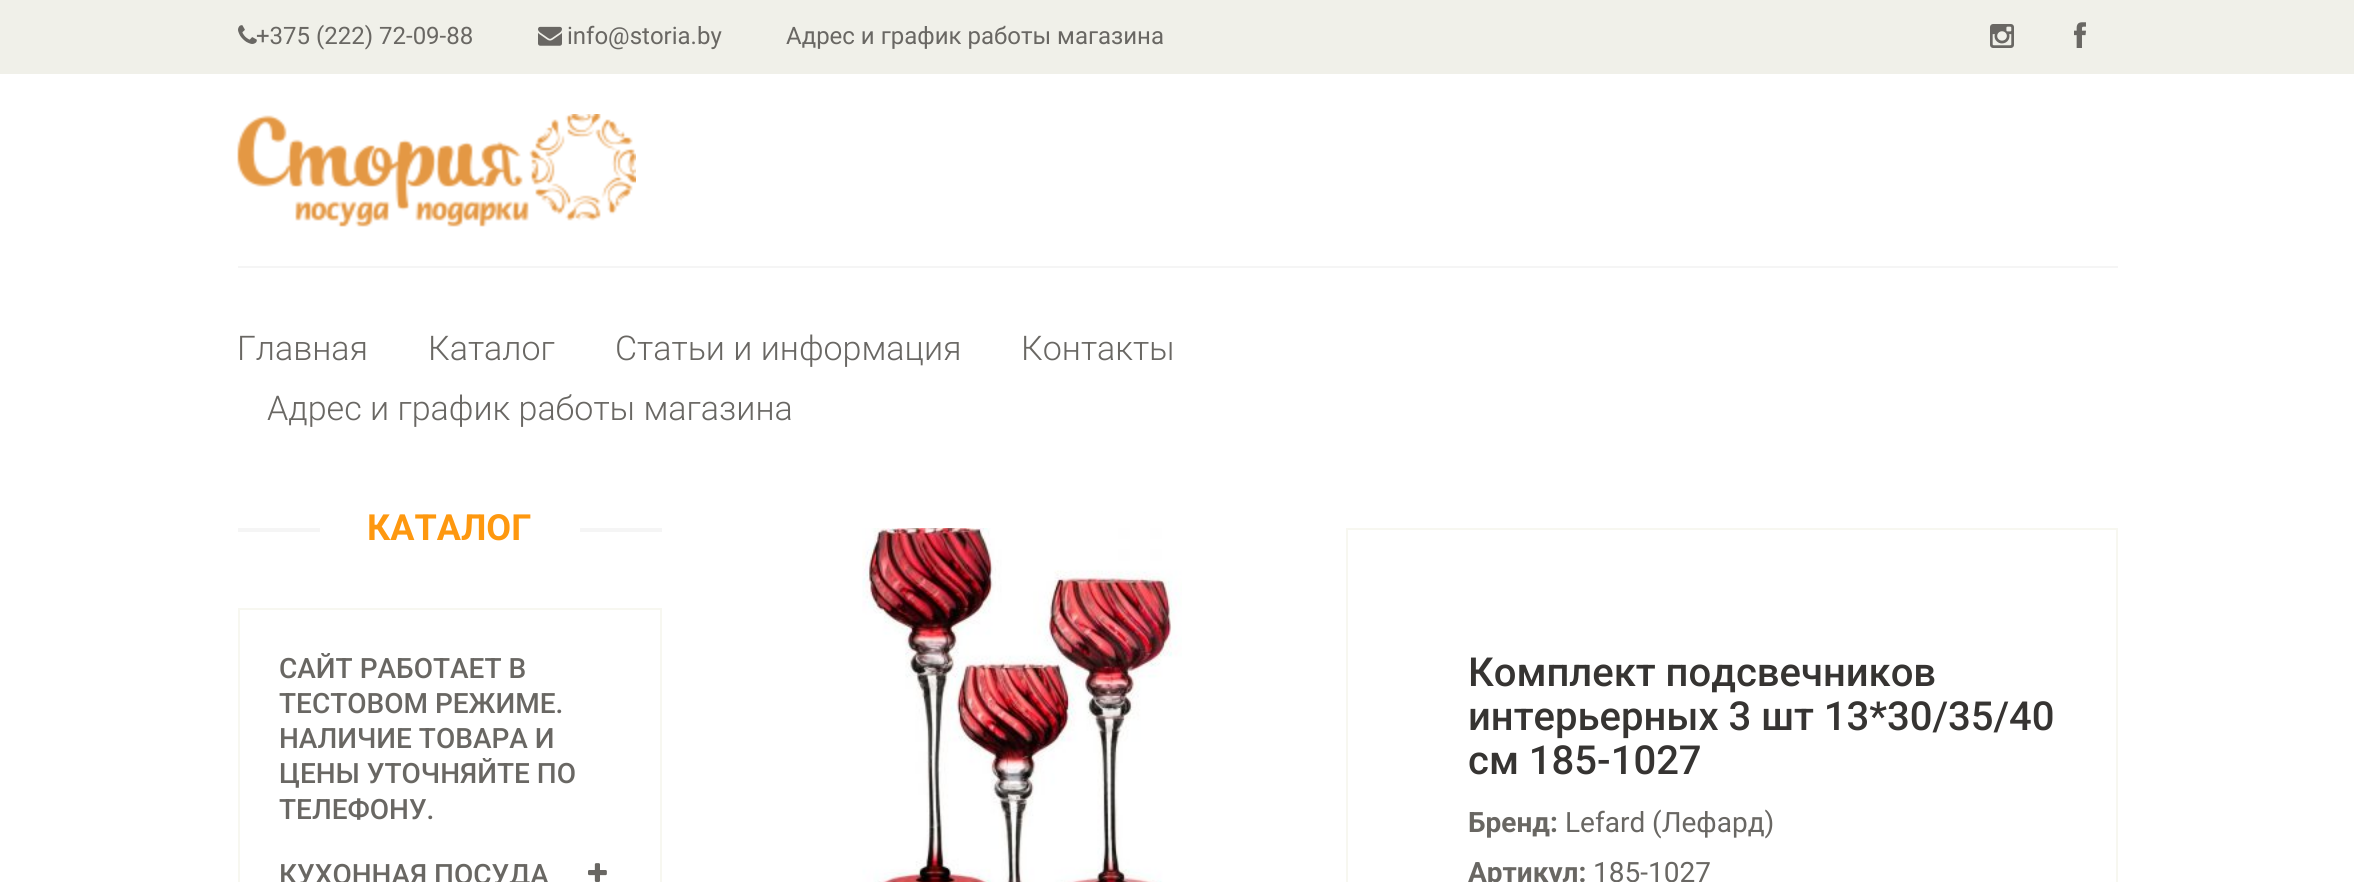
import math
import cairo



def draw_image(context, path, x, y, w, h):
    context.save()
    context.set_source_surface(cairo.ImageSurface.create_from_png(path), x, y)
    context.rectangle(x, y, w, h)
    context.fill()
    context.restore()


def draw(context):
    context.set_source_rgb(1, 1, 1)
    context.paint()
    context.set_source_rgb(240 / 255, 240 / 255, 233 / 255)
    context.rectangle(0, 0, 2354, 74)
    context.fill()
    draw_image(context, "images/1.png", 238, 25, 19, 19)
    draw_image(context, "images/2.png", 538, 26, 24, 20)
    draw_image(context, "images/3.png", 1990, 24, 24, 24)
    draw_image(context, "images/4.png", 2074, 22, 12, 26)
    context.set_source_rgb(245 / 255, 245 / 255, 245 / 255)
    context.rectangle(238, 266, 1880, 2)
    context.fill()
    draw_image(context, "images/5.png", 237, 114, 399, 113)
    context.rectangle(238, 528, 424, 4)
    context.fill()
    context.set_source_rgb(1, 1, 1)
    context.rectangle(320, 528, 260, 4)
    context.fill()
    context.rectangle(239, 609, 422, 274)
    context.set_source_rgb(247 / 255, 247 / 255, 240 / 255)
    context.stroke()
    draw_image(context, "images/6.png", 588, 863, 19, 19)
    draw_image(context, "images/7.png", 862, 528, 320, 354)
    context.rectangle(1347, 529, 770, 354)
    context.stroke()
    context.select_font_face("Roboto")
    context.set_font_size(24)
    context.set_source_rgb(105 / 255, 103 / 255, 99 / 255)
    context.move_to(256, 44)
    context.show_text("+375 (222) 72-09-88")
    context.move_to(567, 44)
    context.show_text("info@storia.by")
    context.move_to(786, 44)
    context.show_text("Адрес и график работы магазина")
    context.select_font_face("Roboto Light")
    context.set_font_size(34)
    context.move_to(237, 360)
    context.show_text("Главная")
    context.move_to(428, 360)
    context.show_text("Каталог")
    context.move_to(615, 360)
    context.show_text("Статьи и информация")
    context.move_to(1021, 360)
    context.show_text("Контакты")
    context.move_to(267, 420)
    context.show_text("Адрес и график работы магазина")
    context.select_font_face("Roboto", cairo.FontSlant.NORMAL, cairo.FontWeight.BOLD)
    context.set_font_size(36)
    context.set_source_rgb(254 / 255, 152 / 255, 15 / 255)
    context.move_to(367, 540)
    context.show_text("КАТАЛОГ")
    context.select_font_face("Roboto Medium")
    context.set_font_size(28)
    context.set_source_rgb(105 / 255, 103 / 255, 99 / 255)
    context.move_to(279, 678)
    context.show_text("САЙТ РАБОТАЕТ В")
    context.move_to(279, 713)
    context.show_text("ТЕСТОВОМ РЕЖИМЕ.")
    context.move_to(279, 748)
    context.show_text("НАЛИЧИЕ ТОВАРА И")
    context.move_to(279, 783)
    context.show_text("ЦЕНЫ УТОЧНЯЙТЕ ПО")
    context.move_to(279, 819)
    context.show_text("ТЕЛЕФОНУ.")
    context.move_to(279, 884)
    context.show_text("КУХОННАЯ ПОСУДА")
    context.set_font_size(40)
    context.set_source_rgb(54 / 255, 52 / 255, 50 / 255)
    context.move_to(1468, 686)
    context.show_text("Комплект подсвечников")
    context.move_to(1468, 730)
    context.show_text("интерьерных 3 шт 13*30/35/40")
    context.move_to(1468, 774)
    context.show_text("см 185-1027")
    context.select_font_face("Roboto", cairo.FontSlant.NORMAL, cairo.FontWeight.BOLD)
    context.set_font_size(28)
    context.set_source_rgb(105 / 255, 103 / 255, 99 / 255)
    context.move_to(1468, 832)
    context.show_text("Бренд:")
    context.select_font_face("Roboto")
    context.move_to(1565, 832)
    context.show_text("Lefard (Лефард)")
    context.select_font_face("Roboto", cairo.FontSlant.NORMAL, cairo.FontWeight.BOLD)
    context.move_to(1468, 882)
    context.show_text("Артикул:")
    context.select_font_face("Roboto")
    context.move_to(1593, 882)
    context.show_text("185-1027")


surface = cairo.ImageSurface(cairo.Format.RGB24, 2354, 882)
context = cairo.Context(surface)
options = cairo.FontOptions()
options.set_hint_metrics(cairo.HintMetrics.OFF)
options.set_hint_style(cairo.HintStyle.NONE)
context.set_font_options(options)
context.set_miter_limit(4)
draw(context)
surface.write_to_png("out.png")
